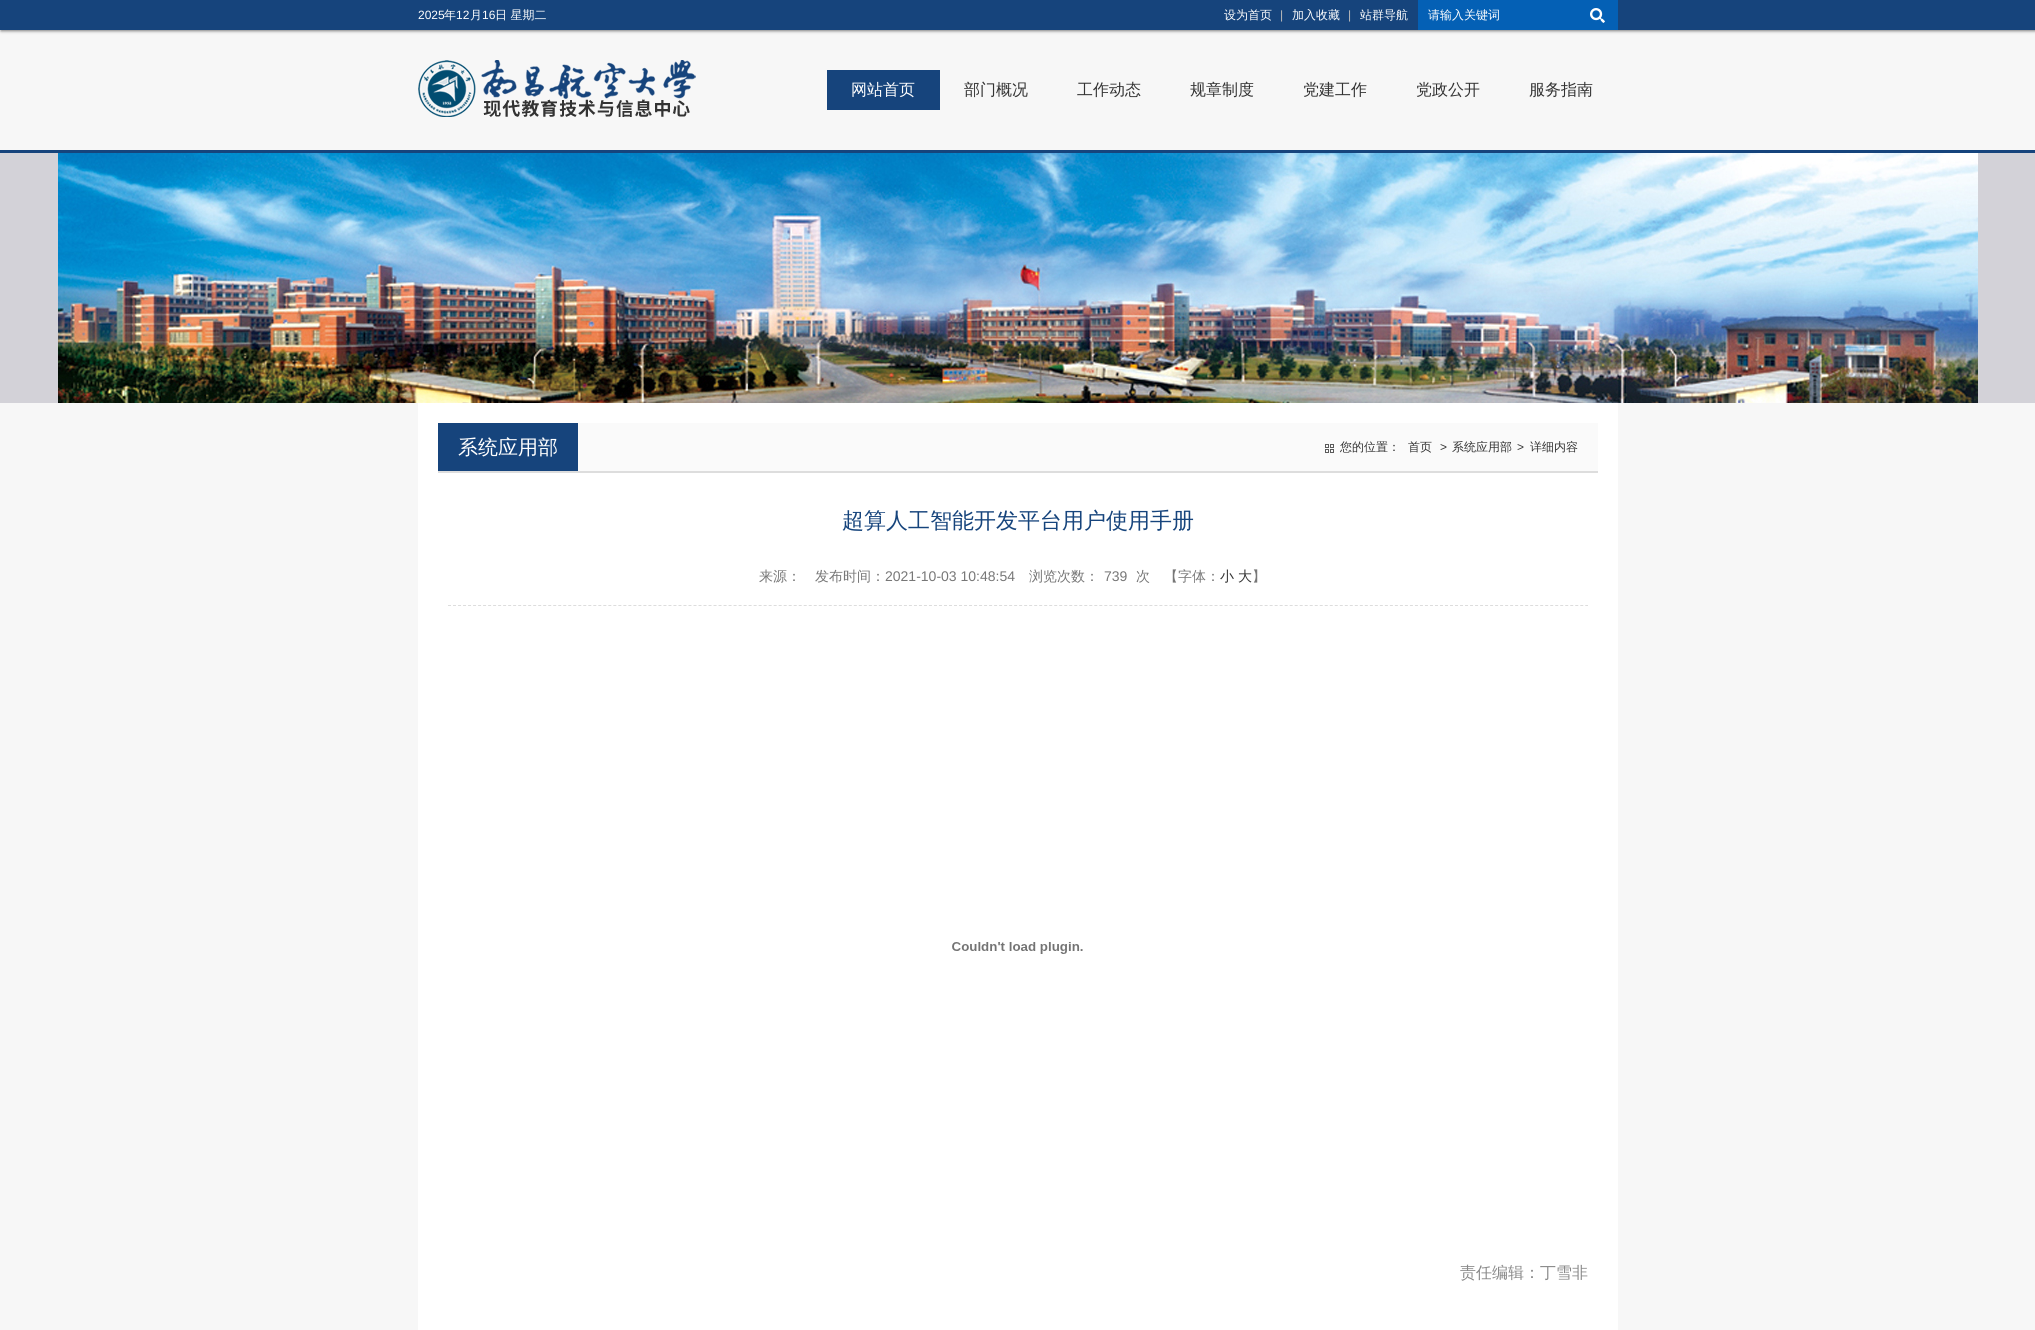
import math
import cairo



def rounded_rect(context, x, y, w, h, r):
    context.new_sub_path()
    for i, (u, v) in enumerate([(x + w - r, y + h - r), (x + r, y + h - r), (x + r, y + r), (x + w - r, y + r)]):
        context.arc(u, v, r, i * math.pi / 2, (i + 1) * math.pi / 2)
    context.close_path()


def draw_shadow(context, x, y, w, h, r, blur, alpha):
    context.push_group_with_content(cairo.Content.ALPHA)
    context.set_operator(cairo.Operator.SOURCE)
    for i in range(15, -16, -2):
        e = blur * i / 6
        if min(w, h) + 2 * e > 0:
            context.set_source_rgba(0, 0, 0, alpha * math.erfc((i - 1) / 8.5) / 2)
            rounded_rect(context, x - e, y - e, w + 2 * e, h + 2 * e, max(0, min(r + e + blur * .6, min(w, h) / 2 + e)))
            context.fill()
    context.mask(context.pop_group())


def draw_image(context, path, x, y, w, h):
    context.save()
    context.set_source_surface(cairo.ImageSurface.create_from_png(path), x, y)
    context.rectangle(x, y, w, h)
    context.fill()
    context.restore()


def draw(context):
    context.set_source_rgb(247 / 255, 247 / 255, 247 / 255)
    context.paint()
    context.set_source_rgb(0, 0, 0)
    draw_shadow(context, 1, 1, 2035, 30, 0, 1.5, 0.5)
    context.set_source_rgb(22 / 255, 68 / 255, 124 / 255)
    context.rectangle(0, 0, 2035, 30)
    context.fill()
    context.set_source_rgb(4 / 255, 96 / 255, 181 / 255)
    context.rectangle(1418, 0, 200, 30)
    context.fill()
    draw_image(context, "images/1.png", 1590, 8, 15, 15)
    context.set_source_rgb(22 / 255, 68 / 255, 124 / 255)
    context.rectangle(0, 150, 2035, 3)
    context.fill()
    draw_image(context, "images/2.png", 418, 60, 278, 57)
    context.rectangle(827, 70, 113, 40)
    context.fill()
    context.set_source_rgb(211 / 255, 210 / 255, 216 / 255)
    context.rectangle(0, 153, 2035, 250)
    context.fill()
    draw_image(context, "images/3.png", 58, 153, 1920, 250)
    context.set_source_rgb(1, 1, 1)
    context.rectangle(418, 403, 1200, 927)
    context.fill()
    context.set_source_rgb(250 / 255, 250 / 255, 250 / 255)
    context.rectangle(578, 423, 1020, 48)
    context.fill()
    context.set_source_rgb(221 / 255, 221 / 255, 221 / 255)
    context.rectangle(438, 471, 1160, 2)
    context.fill()
    context.set_source_rgb(22 / 255, 68 / 255, 124 / 255)
    context.rectangle(438, 423, 140, 48)
    context.fill()
    draw_image(context, "images/4.png", 1325, 444, 9, 9)
    context.new_path()
    context.move_to(448, 605.5)
    context.line_to(1588, 605.5)
    context.set_source_rgb(221 / 255, 221 / 255, 221 / 255)
    context.set_line_width(1)
    context.set_dash([3, 2.01])
    context.stroke()
    draw_image(context, "images/5.png", 952, 942, 131, 12)
    context.select_font_face("Liberation Sans")
    context.set_font_size(12)
    context.set_source_rgb(1, 1, 1)
    context.move_to(418, 19)
    context.show_text("2025")
    context.select_font_face("WenQuanYi Zen Hei Medium")
    context.move_to(444, 19)
    context.show_text("年")
    context.select_font_face("Liberation Sans")
    context.move_to(456, 19)
    context.show_text("12")
    context.select_font_face("WenQuanYi Zen Hei Medium")
    context.move_to(470, 19)
    context.show_text("月")
    context.select_font_face("Liberation Sans")
    context.move_to(482, 19)
    context.show_text("16")
    context.select_font_face("WenQuanYi Zen Hei Medium")
    context.move_to(495, 19)
    context.show_text("日 星期二")
    context.move_to(1224, 19)
    context.show_text("设为首页")
    context.select_font_face("Liberation Sans")
    context.set_source_rgb(187 / 255, 187 / 255, 187 / 255)
    context.move_to(1280, 19)
    context.show_text("|")
    context.select_font_face("WenQuanYi Zen Hei Medium")
    context.set_source_rgb(1, 1, 1)
    context.move_to(1292, 19)
    context.show_text("加入收藏")
    context.select_font_face("Liberation Sans")
    context.set_source_rgb(187 / 255, 187 / 255, 187 / 255)
    context.move_to(1348, 19)
    context.show_text("|")
    context.select_font_face("WenQuanYi Zen Hei Medium")
    context.set_source_rgb(1, 1, 1)
    context.move_to(1360, 19)
    context.show_text("站群导航")
    context.move_to(1428, 19)
    context.show_text("请输入关键词")
    context.set_font_size(16)
    context.move_to(851, 95)
    context.show_text("网站首页")
    context.set_source_rgb(51 / 255, 51 / 255, 51 / 255)
    context.move_to(964, 95)
    context.show_text("部门概况")
    context.move_to(1077, 95)
    context.show_text("工作动态")
    context.move_to(1190, 95)
    context.show_text("规章制度")
    context.move_to(1303, 95)
    context.show_text("党建工作")
    context.move_to(1416, 95)
    context.show_text("党政公开")
    context.move_to(1529, 95)
    context.show_text("服务指南")
    context.set_font_size(20)
    context.set_source_rgb(1, 1, 1)
    context.move_to(458, 454)
    context.show_text("系统应用部")
    context.set_font_size(12)
    context.set_source_rgb(51 / 255, 51 / 255, 51 / 255)
    context.move_to(1340, 451)
    context.show_text("您的位置：")
    context.move_to(1408, 451)
    context.show_text("首页")
    context.select_font_face("Liberation Sans")
    context.move_to(1440, 451)
    context.show_text(">")
    context.select_font_face("WenQuanYi Zen Hei Medium")
    context.move_to(1452, 451)
    context.show_text("系统应用部")
    context.select_font_face("Liberation Sans")
    context.move_to(1517, 451)
    context.show_text(">")
    context.select_font_face("WenQuanYi Zen Hei Medium")
    context.move_to(1530, 451)
    context.show_text("详细内容")
    context.set_font_size(22)
    context.set_source_rgb(22 / 255, 68 / 255, 124 / 255)
    context.move_to(842, 528)
    context.show_text("超算人工智能开发平台用户使用手册")
    context.set_font_size(14)
    context.set_source_rgb(119 / 255, 119 / 255, 119 / 255)
    context.move_to(759, 581)
    context.show_text("来源：")
    context.move_to(815, 581)
    context.show_text("发布时间：")
    context.select_font_face("Liberation Sans")
    context.move_to(885, 581)
    context.show_text("2021-10-03 10:48:54")
    context.select_font_face("WenQuanYi Zen Hei Medium")
    context.move_to(1029, 581)
    context.show_text("浏览次数：")
    context.select_font_face("Liberation Sans")
    context.move_to(1104, 581)
    context.show_text("739")
    context.select_font_face("WenQuanYi Zen Hei Medium")
    context.move_to(1136, 581)
    context.show_text("次")
    context.move_to(1164, 581)
    context.show_text("【字体：")
    context.set_source_rgb(51 / 255, 51 / 255, 51 / 255)
    context.move_to(1220, 581)
    context.show_text("小")
    context.move_to(1238, 581)
    context.show_text("大")
    context.set_source_rgb(119 / 255, 119 / 255, 119 / 255)
    context.move_to(1252, 581)
    context.show_text("】")
    context.set_font_size(16)
    context.set_source_rgb(136 / 255, 136 / 255, 136 / 255)
    context.move_to(1460, 1278)
    context.show_text("责任编辑：丁雪非")


surface = cairo.ImageSurface(cairo.Format.RGB24, 2035, 1330)
context = cairo.Context(surface)
options = cairo.FontOptions()
options.set_hint_metrics(cairo.HintMetrics.OFF)
options.set_hint_style(cairo.HintStyle.NONE)
context.set_font_options(options)
context.set_miter_limit(4)
draw(context)
surface.write_to_png("out.png")
